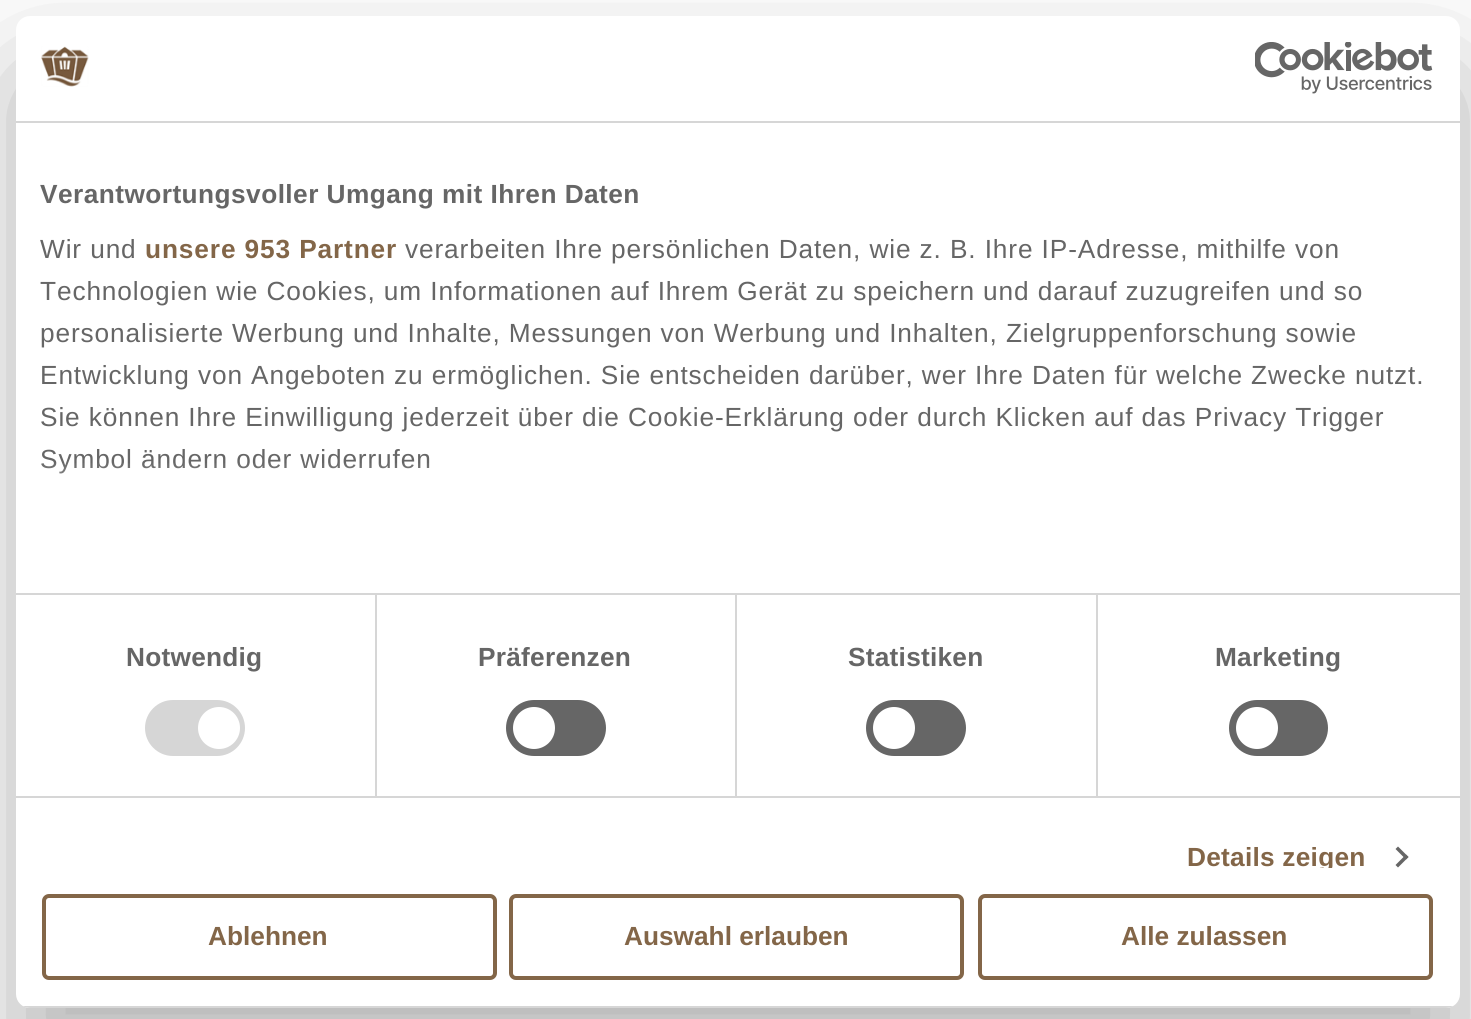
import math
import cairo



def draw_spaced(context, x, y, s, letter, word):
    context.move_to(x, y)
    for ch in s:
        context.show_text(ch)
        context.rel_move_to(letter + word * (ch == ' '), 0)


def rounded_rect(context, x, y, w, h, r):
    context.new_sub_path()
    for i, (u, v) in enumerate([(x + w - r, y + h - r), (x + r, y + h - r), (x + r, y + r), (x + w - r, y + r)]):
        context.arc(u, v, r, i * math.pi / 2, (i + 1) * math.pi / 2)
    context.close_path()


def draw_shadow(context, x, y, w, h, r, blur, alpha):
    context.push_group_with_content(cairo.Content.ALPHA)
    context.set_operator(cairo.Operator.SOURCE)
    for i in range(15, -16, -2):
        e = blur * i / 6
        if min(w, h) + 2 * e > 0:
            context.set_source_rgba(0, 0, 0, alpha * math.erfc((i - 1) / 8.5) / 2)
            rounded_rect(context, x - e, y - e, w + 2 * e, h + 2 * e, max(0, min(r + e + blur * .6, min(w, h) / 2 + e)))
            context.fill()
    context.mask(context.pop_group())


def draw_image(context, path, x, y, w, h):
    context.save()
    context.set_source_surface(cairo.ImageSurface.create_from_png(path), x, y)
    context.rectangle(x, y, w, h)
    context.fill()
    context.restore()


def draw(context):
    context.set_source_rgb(1, 1, 1)
    context.paint()
    context.set_source_rgb(0, 0, 0)
    draw_shadow(context, 16, 72, 1444, 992, 14, 59.5, 0.3)
    context.set_source_rgb(1, 1, 1)
    rounded_rect(context, 16, 16, 1444, 992, 14)
    context.fill()
    context.set_source_rgb(214 / 255, 214 / 255, 214 / 255)
    context.rectangle(16, 121, 1444, 2)
    context.fill()
    draw_image(context, "images/1.png", 41, 46, 48, 41)
    draw_image(context, "images/2.png", 1255, 42, 178, 52)
    context.rectangle(16, 593, 1444, 2)
    context.fill()
    context.rectangle(16, 796, 1444, 2)
    context.fill()
    context.rectangle(375, 595, 2, 201)
    context.fill()
    rounded_rect(context, 145, 700, 100, 56, 28)
    context.fill()
    context.set_source_rgb(1, 1, 1)
    context.arc(219, 728, 21, 0, 2 * math.pi)
    context.fill()
    context.set_source_rgb(214 / 255, 214 / 255, 214 / 255)
    context.rectangle(735, 595, 2, 201)
    context.fill()
    context.set_source_rgb(102 / 255, 102 / 255, 102 / 255)
    rounded_rect(context, 506, 700, 100, 56, 28)
    context.fill()
    context.set_source_rgb(1, 1, 1)
    context.arc(534, 728, 21, 0, 2 * math.pi)
    context.fill()
    context.set_source_rgb(214 / 255, 214 / 255, 214 / 255)
    context.rectangle(1096, 595, 2, 201)
    context.fill()
    context.set_source_rgb(102 / 255, 102 / 255, 102 / 255)
    rounded_rect(context, 866, 700, 100, 56, 28)
    context.fill()
    context.set_source_rgb(1, 1, 1)
    context.arc(894, 728, 21, 0, 2 * math.pi)
    context.fill()
    context.set_source_rgb(102 / 255, 102 / 255, 102 / 255)
    rounded_rect(context, 1229, 700, 99, 56, 28)
    context.fill()
    context.set_source_rgb(1, 1, 1)
    context.arc(1257, 728, 21, 0, 2 * math.pi)
    context.fill()
    context.set_source_rgb(102 / 255, 102 / 255, 102 / 255)
    context.new_path()
    context.move_to(1398, 846.5)
    context.line_to(1408.5, 857)
    context.line_to(1406, 859.5)
    context.line_to(1395.5, 849)
    context.close_path()
    context.fill()
    context.new_path()
    context.move_to(1406, 854.5)
    context.line_to(1408.5, 857)
    context.line_to(1398, 867.5)
    context.line_to(1395.5, 865)
    context.close_path()
    context.fill()
    context.save()
    rounded_rect(context, 16, 16, 1444, 992, 14)
    context.clip()
    context.set_source_rgb(214 / 255, 214 / 255, 214 / 255)
    context.rectangle(16, 1006, 1444, 2)
    context.fill()
    context.restore()
    rounded_rect(context, 44, 896, 451, 82, 5)
    context.set_source_rgb(131 / 255, 102 / 255, 72 / 255)
    context.set_line_width(4)
    context.stroke()
    rounded_rect(context, 511, 896, 451, 82, 5)
    context.stroke()
    rounded_rect(context, 980, 896, 451, 82, 5)
    context.stroke()
    context.select_font_face("Liberation Sans", cairo.FontSlant.NORMAL, cairo.FontWeight.BOLD)
    context.set_font_size(26.25)
    context.set_source_rgb(102 / 255, 102 / 255, 102 / 255)
    draw_spaced(context, 40, 203, "Verantwortungsvoller Umgang mit Ihren Daten", 0.45, 0)
    context.select_font_face("Liberation Sans")
    draw_spaced(context, 40, 258, "Wir und", 0.88, 0)
    context.select_font_face("Liberation Sans", cairo.FontSlant.NORMAL, cairo.FontWeight.BOLD)
    context.set_source_rgb(131 / 255, 102 / 255, 72 / 255)
    draw_spaced(context, 145, 258, "unsere 953 Partner", 0.88, 0)
    context.select_font_face("Liberation Sans")
    context.set_source_rgb(102 / 255, 102 / 255, 102 / 255)
    draw_spaced(context, 405, 258, "verarbeiten Ihre persönlichen Daten, wie z. B. Ihre IP-Adresse, mithilfe von", 0.88, 0)
    draw_spaced(context, 40, 300, "Technologien wie Cookies, um Informationen auf Ihrem Gerät zu speichern und darauf zuzugreifen und so", 0.88, 0)
    draw_spaced(context, 40, 342, "personalisierte Werbung und Inhalte, Messungen von Werbung und Inhalten, Zielgruppenforschung sowie", 0.88, 0)
    draw_spaced(context, 40, 384, "Entwicklung von Angeboten zu ermöglichen. Sie entscheiden darüber, wer Ihre Daten für welche Zwecke nutzt.", 0.88, 0)
    draw_spaced(context, 40, 426, "Sie können Ihre Einwilligung jederzeit über die Cookie-Erklärung oder durch Klicken auf das Privacy Trigger", 0.88, 0)
    draw_spaced(context, 40, 468, "Symbol ändern oder widerrufen", 0.88, 0)
    gradient = cairo.LinearGradient(725, 592, 725, 461)
    gradient.add_color_stop_rgba(0, 1, 1, 1, 1)
    gradient.add_color_stop_rgba(0.5, 1, 1, 1, 0.8)
    gradient.add_color_stop_rgba(1, 1, 1, 1, 0)
    context.set_source(gradient)
    context.rectangle(42, 463, 388, 11)
    context.fill()
    context.select_font_face("Liberation Sans", cairo.FontSlant.NORMAL, cairo.FontWeight.BOLD)
    context.set_source_rgb(102 / 255, 102 / 255, 102 / 255)
    draw_spaced(context, 126, 666, "Notwendig", 0.25, 0)
    draw_spaced(context, 478, 666, "Präferenzen", 0.25, 0)
    draw_spaced(context, 848, 666, "Statistiken", 0.25, 0)
    draw_spaced(context, 1215, 666, "Marketing", 0.25, 0)
    context.save()
    context.rectangle(16, 123, 1444, 745)
    context.clip()
    context.set_source_rgb(131 / 255, 102 / 255, 72 / 255)
    draw_spaced(context, 1187, 866, "Details zeigen", 0.25, 0)
    context.restore()
    context.set_source_rgb(131 / 255, 102 / 255, 72 / 255)
    context.move_to(208, 945)
    context.show_text("Ablehnen")
    context.move_to(624, 945)
    context.show_text("Auswahl erlauben")
    context.move_to(1121, 945)
    context.show_text("Alle zulassen")


surface = cairo.ImageSurface(cairo.Format.RGB24, 1471, 1019)
context = cairo.Context(surface)
options = cairo.FontOptions()
options.set_hint_metrics(cairo.HintMetrics.OFF)
options.set_hint_style(cairo.HintStyle.NONE)
context.set_font_options(options)
context.set_miter_limit(4)
draw(context)
surface.write_to_png("out.png")
